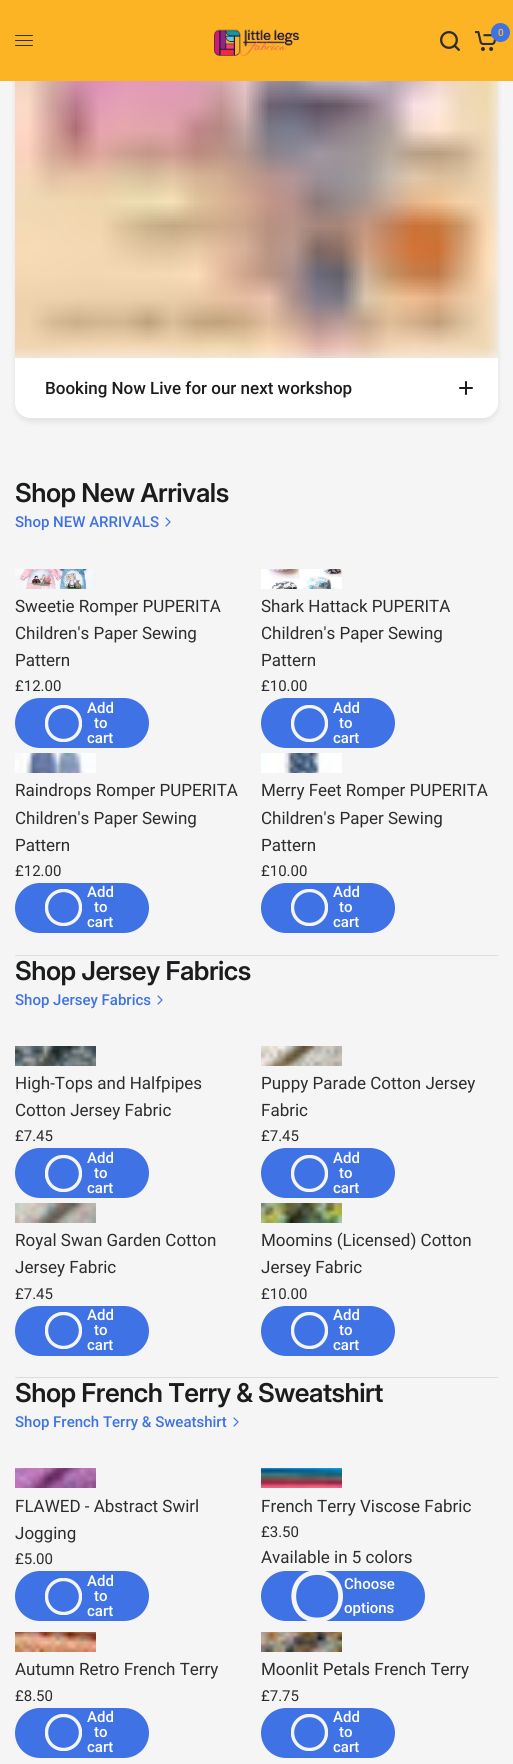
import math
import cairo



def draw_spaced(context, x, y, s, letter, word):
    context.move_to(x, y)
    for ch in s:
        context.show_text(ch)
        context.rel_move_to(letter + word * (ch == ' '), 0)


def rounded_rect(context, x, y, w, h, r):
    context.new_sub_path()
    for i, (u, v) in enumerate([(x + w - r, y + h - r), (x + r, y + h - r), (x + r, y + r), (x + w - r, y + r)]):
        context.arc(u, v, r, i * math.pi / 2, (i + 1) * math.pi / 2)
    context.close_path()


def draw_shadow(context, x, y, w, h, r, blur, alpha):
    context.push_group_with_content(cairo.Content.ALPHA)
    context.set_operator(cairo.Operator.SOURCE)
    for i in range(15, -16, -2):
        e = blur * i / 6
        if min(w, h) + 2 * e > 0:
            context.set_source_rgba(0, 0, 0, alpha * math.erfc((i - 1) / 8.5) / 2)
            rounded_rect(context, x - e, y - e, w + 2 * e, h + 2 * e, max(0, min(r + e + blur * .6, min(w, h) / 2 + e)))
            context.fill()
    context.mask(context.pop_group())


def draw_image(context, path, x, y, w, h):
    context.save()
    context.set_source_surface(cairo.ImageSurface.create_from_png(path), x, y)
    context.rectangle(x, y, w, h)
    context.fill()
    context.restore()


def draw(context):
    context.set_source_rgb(245 / 255, 245 / 255, 245 / 255)
    context.paint()
    context.save()
    context.set_fill_rule(cairo.FillRule.EVEN_ODD)
    context.new_path()
    context.move_to(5, 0)
    context.line_to(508, 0)
    context.line_to(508, 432)
    context.line_to(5, 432)
    context.close_path()
    context.move_to(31, -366)
    context.line_to(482, -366)
    context.curve_to(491, -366, 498, -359, 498, -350)
    context.line_to(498, 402)
    context.curve_to(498, 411, 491, 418, 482, 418)
    context.line_to(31, 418)
    context.curve_to(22, 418, 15, 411, 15, 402)
    context.line_to(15, -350)
    context.curve_to(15, -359, 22, -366, 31, -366)
    context.close_path()
    context.clip()
    context.set_source_rgb(0, 0, 0)
    draw_shadow(context, 15, -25, 483, 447, 16, 3, 0.08)
    context.restore()
    context.set_source_rgb(252 / 255, 180 / 255, 36 / 255)
    context.rectangle(0, 0, 513, 81)
    context.fill()
    context.set_source_rgb(44 / 255, 45 / 255, 46 / 255)
    rounded_rect(context, 15, 35, 18, 1, 0.5)
    context.fill()
    rounded_rect(context, 15, 40, 18, 1, 0.5)
    context.fill()
    rounded_rect(context, 15, 45, 18, 1, 0.5)
    context.fill()
    draw_image(context, "images/1.png", 214, 29, 86, 27)
    draw_image(context, "images/2.png", 440, 31, 20, 20)
    draw_image(context, "images/3.png", 474, 31, 22, 20)
    context.set_source_rgb(63 / 255, 114 / 255, 229 / 255)
    context.arc(500.5, 32.5, 9.5, 0, 2 * math.pi)
    context.fill()
    draw_image(context, "images/4.png", 15, 81, 483, 277)
    context.set_source_rgb(1, 1, 1)
    context.new_path()
    context.move_to(15, 358)
    context.line_to(498, 358)
    context.line_to(498, 402)
    context.curve_to(498, 411, 491, 418, 482, 418)
    context.line_to(31, 418)
    context.curve_to(22, 418, 15, 411, 15, 402)
    context.close_path()
    context.fill()
    context.set_source_rgb(26 / 255, 28 / 255, 29 / 255)
    rounded_rect(context, 459, 387, 14, 2, 1)
    context.fill()
    rounded_rect(context, 465, 381, 2, 14, 1)
    context.fill()
    context.new_path()
    context.move_to(166, 518)
    context.line_to(170, 522)
    context.line_to(166, 526)
    context.set_source_rgb(63 / 255, 114 / 255, 229 / 255)
    context.set_line_width(1.2)
    context.set_line_cap(cairo.LineCap.ROUND)
    context.set_line_join(cairo.LineJoin.ROUND)
    context.stroke()
    draw_image(context, "images/5.png", 15, 569, 81, 20)
    rounded_rect(context, 15, 698, 134, 50, 25)
    context.fill()
    context.save()
    context.rectangle(45, 705, 37, 37)
    context.clip()
    context.new_path()
    context.move_to(63.5, 706.5)
    context.curve_to(73, 706.5, 80.5, 714, 80.5, 723.5)
    context.curve_to(80.5, 733, 73, 740.5, 63.5, 740.5)
    context.curve_to(54, 740.5, 46.5, 733, 46.5, 723.5)
    context.curve_to(46.5, 714, 54, 706.5, 63.5, 706.5)
    context.set_source_rgb(245 / 255, 245 / 255, 245 / 255)
    context.set_line_width(3.4)
    context.set_line_cap(cairo.LineCap.BUTT)
    context.set_line_join(cairo.LineJoin.MITER)
    context.stroke()
    context.restore()
    draw_image(context, "images/6.png", 261, 569, 81, 20)
    rounded_rect(context, 261, 698, 134, 50, 25)
    context.fill()
    context.save()
    context.rectangle(291, 705, 37, 37)
    context.clip()
    context.new_path()
    context.move_to(309.5, 706.5)
    context.curve_to(319, 706.5, 326.5, 714, 326.5, 723.5)
    context.curve_to(326.5, 733, 319, 740.5, 309.5, 740.5)
    context.curve_to(300, 740.5, 292.5, 733, 292.5, 723.5)
    context.curve_to(292.5, 714, 300, 706.5, 309.5, 706.5)
    context.set_source_rgb(245 / 255, 245 / 255, 245 / 255)
    context.set_line_width(3.4)
    context.set_line_cap(cairo.LineCap.BUTT)
    context.set_line_join(cairo.LineJoin.MITER)
    context.stroke()
    context.restore()
    draw_image(context, "images/7.png", 15, 753, 81, 20)
    rounded_rect(context, 15, 883, 134, 50, 25)
    context.fill()
    context.save()
    context.rectangle(45, 889, 37, 37)
    context.clip()
    context.new_path()
    context.move_to(63.5, 890.5)
    context.curve_to(73, 890.5, 80.5, 898, 80.5, 907.5)
    context.curve_to(80.5, 917, 73, 924.5, 63.5, 924.5)
    context.curve_to(54, 924.5, 46.5, 917, 46.5, 907.5)
    context.curve_to(46.5, 898, 54, 890.5, 63.5, 890.5)
    context.set_source_rgb(245 / 255, 245 / 255, 245 / 255)
    context.set_line_width(3.4)
    context.set_line_cap(cairo.LineCap.BUTT)
    context.set_line_join(cairo.LineJoin.MITER)
    context.stroke()
    context.restore()
    draw_image(context, "images/8.png", 261, 753, 81, 20)
    rounded_rect(context, 261, 883, 134, 50, 25)
    context.fill()
    context.save()
    context.rectangle(291, 889, 37, 37)
    context.clip()
    context.new_path()
    context.move_to(309.5, 890.5)
    context.curve_to(319, 890.5, 326.5, 898, 326.5, 907.5)
    context.curve_to(326.5, 917, 319, 924.5, 309.5, 924.5)
    context.curve_to(300, 924.5, 292.5, 917, 292.5, 907.5)
    context.curve_to(292.5, 898, 300, 890.5, 309.5, 890.5)
    context.set_source_rgb(245 / 255, 245 / 255, 245 / 255)
    context.set_line_width(3.4)
    context.set_line_cap(cairo.LineCap.BUTT)
    context.set_line_join(cairo.LineJoin.MITER)
    context.stroke()
    context.restore()
    context.set_source_rgb(218 / 255, 220 / 255, 224 / 255)
    rounded_rect(context, 15, 955, 483, 1, 0.5)
    context.fill()
    context.new_path()
    context.move_to(158, 996)
    context.line_to(162, 1000)
    context.line_to(158, 1004)
    context.set_source_rgb(63 / 255, 114 / 255, 229 / 255)
    context.stroke()
    draw_image(context, "images/9.png", 15, 1046, 81, 20)
    rounded_rect(context, 15, 1148, 134, 50, 25)
    context.fill()
    context.save()
    context.rectangle(45, 1155, 37, 37)
    context.clip()
    context.new_path()
    context.move_to(63.5, 1156.5)
    context.curve_to(73, 1156.5, 80.5, 1164, 80.5, 1173.5)
    context.curve_to(80.5, 1183, 73, 1190.5, 63.5, 1190.5)
    context.curve_to(54, 1190.5, 46.5, 1183, 46.5, 1173.5)
    context.curve_to(46.5, 1164, 54, 1156.5, 63.5, 1156.5)
    context.set_source_rgb(245 / 255, 245 / 255, 245 / 255)
    context.set_line_width(3.4)
    context.set_line_cap(cairo.LineCap.BUTT)
    context.set_line_join(cairo.LineJoin.MITER)
    context.stroke()
    context.restore()
    draw_image(context, "images/10.png", 261, 1046, 81, 20)
    rounded_rect(context, 261, 1148, 134, 50, 25)
    context.fill()
    context.save()
    context.rectangle(291, 1155, 37, 37)
    context.clip()
    context.new_path()
    context.move_to(309.5, 1156.5)
    context.curve_to(319, 1156.5, 326.5, 1164, 326.5, 1173.5)
    context.curve_to(326.5, 1183, 319, 1190.5, 309.5, 1190.5)
    context.curve_to(300, 1190.5, 292.5, 1183, 292.5, 1173.5)
    context.curve_to(292.5, 1164, 300, 1156.5, 309.5, 1156.5)
    context.set_source_rgb(245 / 255, 245 / 255, 245 / 255)
    context.set_line_width(3.4)
    context.set_line_cap(cairo.LineCap.BUTT)
    context.set_line_join(cairo.LineJoin.MITER)
    context.stroke()
    context.restore()
    draw_image(context, "images/11.png", 15, 1203, 81, 20)
    rounded_rect(context, 15, 1306, 134, 50, 25)
    context.fill()
    context.save()
    context.rectangle(45, 1312, 37, 37)
    context.clip()
    context.new_path()
    context.move_to(63.5, 1313.5)
    context.curve_to(73, 1313.5, 80.5, 1321, 80.5, 1330.5)
    context.curve_to(80.5, 1340, 73, 1347.5, 63.5, 1347.5)
    context.curve_to(54, 1347.5, 46.5, 1340, 46.5, 1330.5)
    context.curve_to(46.5, 1321, 54, 1313.5, 63.5, 1313.5)
    context.set_source_rgb(245 / 255, 245 / 255, 245 / 255)
    context.set_line_width(3.4)
    context.set_line_cap(cairo.LineCap.BUTT)
    context.set_line_join(cairo.LineJoin.MITER)
    context.stroke()
    context.restore()
    draw_image(context, "images/12.png", 261, 1203, 81, 20)
    rounded_rect(context, 261, 1306, 134, 50, 25)
    context.fill()
    context.save()
    context.rectangle(291, 1312, 37, 37)
    context.clip()
    context.new_path()
    context.move_to(309.5, 1313.5)
    context.curve_to(319, 1313.5, 326.5, 1321, 326.5, 1330.5)
    context.curve_to(326.5, 1340, 319, 1347.5, 309.5, 1347.5)
    context.curve_to(300, 1347.5, 292.5, 1340, 292.5, 1330.5)
    context.curve_to(292.5, 1321, 300, 1313.5, 309.5, 1313.5)
    context.set_source_rgb(245 / 255, 245 / 255, 245 / 255)
    context.set_line_width(3.4)
    context.set_line_cap(cairo.LineCap.BUTT)
    context.set_line_join(cairo.LineJoin.MITER)
    context.stroke()
    context.restore()
    context.set_source_rgb(218 / 255, 220 / 255, 224 / 255)
    rounded_rect(context, 15, 1377, 483, 1, 0.5)
    context.fill()
    context.new_path()
    context.move_to(234, 1418)
    context.line_to(238, 1422)
    context.line_to(234, 1426)
    context.set_source_rgb(63 / 255, 114 / 255, 229 / 255)
    context.stroke()
    draw_image(context, "images/13.png", 15, 1468, 81, 20)
    rounded_rect(context, 15, 1571, 134, 50, 25)
    context.fill()
    context.save()
    context.rectangle(45, 1578, 37, 37)
    context.clip()
    context.new_path()
    context.move_to(63.5, 1579.5)
    context.curve_to(73, 1579.5, 80.5, 1587, 80.5, 1596.5)
    context.curve_to(80.5, 1606, 73, 1613.5, 63.5, 1613.5)
    context.curve_to(54, 1613.5, 46.5, 1606, 46.5, 1596.5)
    context.curve_to(46.5, 1587, 54, 1579.5, 63.5, 1579.5)
    context.set_source_rgb(245 / 255, 245 / 255, 245 / 255)
    context.set_line_width(3.4)
    context.set_line_cap(cairo.LineCap.BUTT)
    context.set_line_join(cairo.LineJoin.MITER)
    context.stroke()
    context.restore()
    draw_image(context, "images/14.png", 261, 1468, 81, 20)
    rounded_rect(context, 261, 1571, 164, 50, 25)
    context.fill()
    context.save()
    rounded_rect(context, 261, 1571, 164, 50, 25)
    context.clip()
    context.new_path()
    context.move_to(317, 1572.5)
    context.curve_to(348.5, 1572.5, 348.5, 1620, 317, 1620)
    context.curve_to(286, 1620, 286, 1572.5, 317, 1572.5)
    context.set_source_rgb(245 / 255, 245 / 255, 245 / 255)
    context.set_line_width(4.8)
    context.set_line_cap(cairo.LineCap.BUTT)
    context.set_line_join(cairo.LineJoin.MITER)
    context.stroke()
    context.restore()
    draw_image(context, "images/15.png", 15, 1632, 81, 20)
    rounded_rect(context, 15, 1708, 134, 50, 25)
    context.fill()
    context.save()
    context.rectangle(45, 1714, 37, 37)
    context.clip()
    context.new_path()
    context.move_to(63.5, 1715.5)
    context.curve_to(73, 1715.5, 80.5, 1723, 80.5, 1732.5)
    context.curve_to(80.5, 1742, 73, 1749.5, 63.5, 1749.5)
    context.curve_to(54, 1749.5, 46.5, 1742, 46.5, 1732.5)
    context.curve_to(46.5, 1723, 54, 1715.5, 63.5, 1715.5)
    context.set_source_rgb(245 / 255, 245 / 255, 245 / 255)
    context.set_line_width(3.4)
    context.set_line_cap(cairo.LineCap.BUTT)
    context.set_line_join(cairo.LineJoin.MITER)
    context.stroke()
    context.restore()
    draw_image(context, "images/16.png", 261, 1632, 81, 20)
    rounded_rect(context, 261, 1708, 134, 50, 25)
    context.fill()
    context.save()
    context.rectangle(291, 1714, 37, 37)
    context.clip()
    context.new_path()
    context.move_to(309.5, 1715.5)
    context.curve_to(319, 1715.5, 326.5, 1723, 326.5, 1732.5)
    context.curve_to(326.5, 1742, 319, 1749.5, 309.5, 1749.5)
    context.curve_to(300, 1749.5, 292.5, 1742, 292.5, 1732.5)
    context.curve_to(292.5, 1723, 300, 1715.5, 309.5, 1715.5)
    context.set_source_rgb(245 / 255, 245 / 255, 245 / 255)
    context.set_line_width(3.4)
    context.set_line_cap(cairo.LineCap.BUTT)
    context.set_line_join(cairo.LineJoin.MITER)
    context.stroke()
    context.restore()
    context.select_font_face("Roboto SemiBold")
    context.set_font_size(10)
    context.set_source_rgb(252 / 255, 180 / 255, 36 / 255)
    context.move_to(498, 36)
    context.show_text("0")
    context.select_font_face("Roboto Medium")
    context.set_font_size(17)
    context.set_source_rgb(26 / 255, 28 / 255, 29 / 255)
    context.move_to(45, 394)
    context.show_text("Booking Now Live for our next workshop")
    context.select_font_face("Inter SemiBold")
    context.set_font_size(26)
    draw_spaced(context, 15, 502, "Shop New Arrivals", -0.5, 0)
    context.select_font_face("Roboto Medium")
    context.set_font_size(15)
    context.set_source_rgb(63 / 255, 114 / 255, 229 / 255)
    context.move_to(15, 527)
    context.show_text("Shop NEW ARRIVALS")
    context.select_font_face("Roboto")
    context.set_font_size(17)
    context.set_source_rgb(44 / 255, 45 / 255, 46 / 255)
    context.move_to(15, 612)
    context.show_text("Sweetie Romper PUPERITA")
    context.move_to(15, 639)
    context.show_text("Children's Paper Sewing")
    context.move_to(15, 666)
    context.show_text("Pattern")
    context.set_font_size(15)
    context.move_to(15, 691)
    context.show_text("£12.00")
    context.select_font_face("Roboto Medium")
    context.set_source_rgb(1, 1, 1)
    context.move_to(87, 713)
    context.show_text("Add")
    context.move_to(94, 728)
    context.show_text("to")
    context.move_to(87, 743)
    context.show_text("cart")
    context.select_font_face("Roboto")
    context.set_font_size(17)
    context.set_source_rgb(44 / 255, 45 / 255, 46 / 255)
    context.move_to(261, 612)
    context.show_text("Shark Hattack PUPERITA")
    context.move_to(261, 639)
    context.show_text("Children's Paper Sewing")
    context.move_to(261, 666)
    context.show_text("Pattern")
    context.set_font_size(15)
    context.move_to(261, 691)
    context.show_text("£10.00")
    context.select_font_face("Roboto Medium")
    context.set_source_rgb(1, 1, 1)
    context.move_to(333, 713)
    context.show_text("Add")
    context.move_to(339, 728)
    context.show_text("to")
    context.move_to(333, 743)
    context.show_text("cart")
    context.select_font_face("Roboto")
    context.set_font_size(17)
    context.set_source_rgb(44 / 255, 45 / 255, 46 / 255)
    context.move_to(15, 796)
    context.show_text("Raindrops Romper PUPERITA")
    context.move_to(15, 824)
    context.show_text("Children's Paper Sewing")
    context.move_to(15, 851)
    context.show_text("Pattern")
    context.set_font_size(15)
    context.move_to(15, 876)
    context.show_text("£12.00")
    context.select_font_face("Roboto Medium")
    context.set_source_rgb(1, 1, 1)
    context.move_to(87, 897)
    context.show_text("Add")
    context.move_to(94, 912)
    context.show_text("to")
    context.move_to(87, 927)
    context.show_text("cart")
    context.select_font_face("Roboto")
    context.set_font_size(17)
    context.set_source_rgb(44 / 255, 45 / 255, 46 / 255)
    context.move_to(261, 796)
    context.show_text("Merry Feet Romper PUPERITA")
    context.move_to(261, 824)
    context.show_text("Children's Paper Sewing")
    context.move_to(261, 851)
    context.show_text("Pattern")
    context.set_font_size(15)
    context.move_to(261, 876)
    context.show_text("£10.00")
    context.select_font_face("Roboto Medium")
    context.set_source_rgb(1, 1, 1)
    context.move_to(333, 897)
    context.show_text("Add")
    context.move_to(339, 912)
    context.show_text("to")
    context.move_to(333, 927)
    context.show_text("cart")
    context.select_font_face("Inter SemiBold")
    context.set_font_size(26)
    context.set_source_rgb(26 / 255, 28 / 255, 29 / 255)
    draw_spaced(context, 15, 980, "Shop Jersey Fabrics", -0.5, 0)
    context.select_font_face("Roboto Medium")
    context.set_font_size(15)
    context.set_source_rgb(63 / 255, 114 / 255, 229 / 255)
    context.move_to(15, 1005)
    context.show_text("Shop Jersey Fabrics")
    context.select_font_face("Roboto")
    context.set_font_size(17)
    context.set_source_rgb(44 / 255, 45 / 255, 46 / 255)
    context.move_to(15, 1089)
    context.show_text("High-Tops and Halfpipes")
    context.move_to(15, 1116)
    context.show_text("Cotton Jersey Fabric")
    context.set_font_size(15)
    context.move_to(15, 1141)
    context.show_text("£7.45")
    context.select_font_face("Roboto Medium")
    context.set_source_rgb(1, 1, 1)
    context.move_to(87, 1163)
    context.show_text("Add")
    context.move_to(94, 1178)
    context.show_text("to")
    context.move_to(87, 1193)
    context.show_text("cart")
    context.select_font_face("Roboto")
    context.set_font_size(17)
    context.set_source_rgb(44 / 255, 45 / 255, 46 / 255)
    context.move_to(261, 1089)
    context.show_text("Puppy Parade Cotton Jersey")
    context.move_to(261, 1116)
    context.show_text("Fabric")
    context.set_font_size(15)
    context.move_to(261, 1141)
    context.show_text("£7.45")
    context.select_font_face("Roboto Medium")
    context.set_source_rgb(1, 1, 1)
    context.move_to(333, 1163)
    context.show_text("Add")
    context.move_to(339, 1178)
    context.show_text("to")
    context.move_to(333, 1193)
    context.show_text("cart")
    context.select_font_face("Roboto")
    context.set_font_size(17)
    context.set_source_rgb(44 / 255, 45 / 255, 46 / 255)
    context.move_to(15, 1246)
    context.show_text("Royal Swan Garden Cotton")
    context.move_to(15, 1273)
    context.show_text("Jersey Fabric")
    context.set_font_size(15)
    context.move_to(15, 1299)
    context.show_text("£7.45")
    context.select_font_face("Roboto Medium")
    context.set_source_rgb(1, 1, 1)
    context.move_to(87, 1320)
    context.show_text("Add")
    context.move_to(94, 1335)
    context.show_text("to")
    context.move_to(87, 1350)
    context.show_text("cart")
    context.select_font_face("Roboto")
    context.set_font_size(17)
    context.set_source_rgb(44 / 255, 45 / 255, 46 / 255)
    context.move_to(261, 1246)
    context.show_text("Moomins (Licensed) Cotton")
    context.move_to(261, 1273)
    context.show_text("Jersey Fabric")
    context.set_font_size(15)
    context.move_to(261, 1299)
    context.show_text("£10.00")
    context.select_font_face("Roboto Medium")
    context.set_source_rgb(1, 1, 1)
    context.move_to(333, 1320)
    context.show_text("Add")
    context.move_to(339, 1335)
    context.show_text("to")
    context.move_to(333, 1350)
    context.show_text("cart")
    context.select_font_face("Inter SemiBold")
    context.set_font_size(26)
    context.set_source_rgb(26 / 255, 28 / 255, 29 / 255)
    draw_spaced(context, 15, 1402, "Shop French Terry & Sweatshirt", -0.5, 0)
    context.select_font_face("Roboto Medium")
    context.set_font_size(15)
    context.set_source_rgb(63 / 255, 114 / 255, 229 / 255)
    context.move_to(15, 1427)
    context.show_text("Shop French Terry & Sweatshirt")
    context.select_font_face("Roboto")
    context.set_font_size(17)
    context.set_source_rgb(44 / 255, 45 / 255, 46 / 255)
    context.move_to(15, 1512)
    context.show_text("FLAWED - Abstract Swirl")
    context.move_to(15, 1539)
    context.show_text("Jogging")
    context.set_font_size(15)
    context.move_to(15, 1564)
    context.show_text("£5.00")
    context.select_font_face("Roboto Medium")
    context.set_source_rgb(1, 1, 1)
    context.move_to(87, 1586)
    context.show_text("Add")
    context.move_to(94, 1601)
    context.show_text("to")
    context.move_to(87, 1616)
    context.show_text("cart")
    context.select_font_face("Roboto")
    context.set_font_size(17)
    context.set_source_rgb(44 / 255, 45 / 255, 46 / 255)
    context.move_to(261, 1512)
    context.show_text("French Terry Viscose Fabric")
    context.set_font_size(15)
    context.move_to(261, 1537)
    context.show_text("£3.50")
    context.set_font_size(17)
    context.move_to(261, 1563)
    context.show_text("Available in 5 colors")
    context.select_font_face("Roboto Medium")
    context.set_font_size(15)
    context.set_source_rgb(1, 1, 1)
    context.move_to(344, 1589)
    context.show_text("Choose")
    context.move_to(344, 1613)
    context.show_text("options")
    context.select_font_face("Roboto")
    context.set_font_size(17)
    context.set_source_rgb(44 / 255, 45 / 255, 46 / 255)
    context.move_to(15, 1675)
    context.show_text("Autumn Retro French Terry")
    context.set_font_size(15)
    context.move_to(15, 1701)
    context.show_text("£8.50")
    context.select_font_face("Roboto Medium")
    context.set_source_rgb(1, 1, 1)
    context.move_to(87, 1722)
    context.show_text("Add")
    context.move_to(94, 1737)
    context.show_text("to")
    context.move_to(87, 1752)
    context.show_text("cart")
    context.select_font_face("Roboto")
    context.set_font_size(17)
    context.set_source_rgb(44 / 255, 45 / 255, 46 / 255)
    context.move_to(261, 1675)
    context.show_text("Moonlit Petals French Terry")
    context.set_font_size(15)
    context.move_to(261, 1701)
    context.show_text("£7.75")
    context.select_font_face("Roboto Medium")
    context.set_source_rgb(1, 1, 1)
    context.move_to(333, 1722)
    context.show_text("Add")
    context.move_to(339, 1737)
    context.show_text("to")
    context.move_to(333, 1752)
    context.show_text("cart")


surface = cairo.ImageSurface(cairo.Format.RGB24, 513, 1764)
context = cairo.Context(surface)
options = cairo.FontOptions()
options.set_hint_metrics(cairo.HintMetrics.OFF)
options.set_hint_style(cairo.HintStyle.NONE)
context.set_font_options(options)
context.set_miter_limit(4)
draw(context)
surface.write_to_png("out.png")
